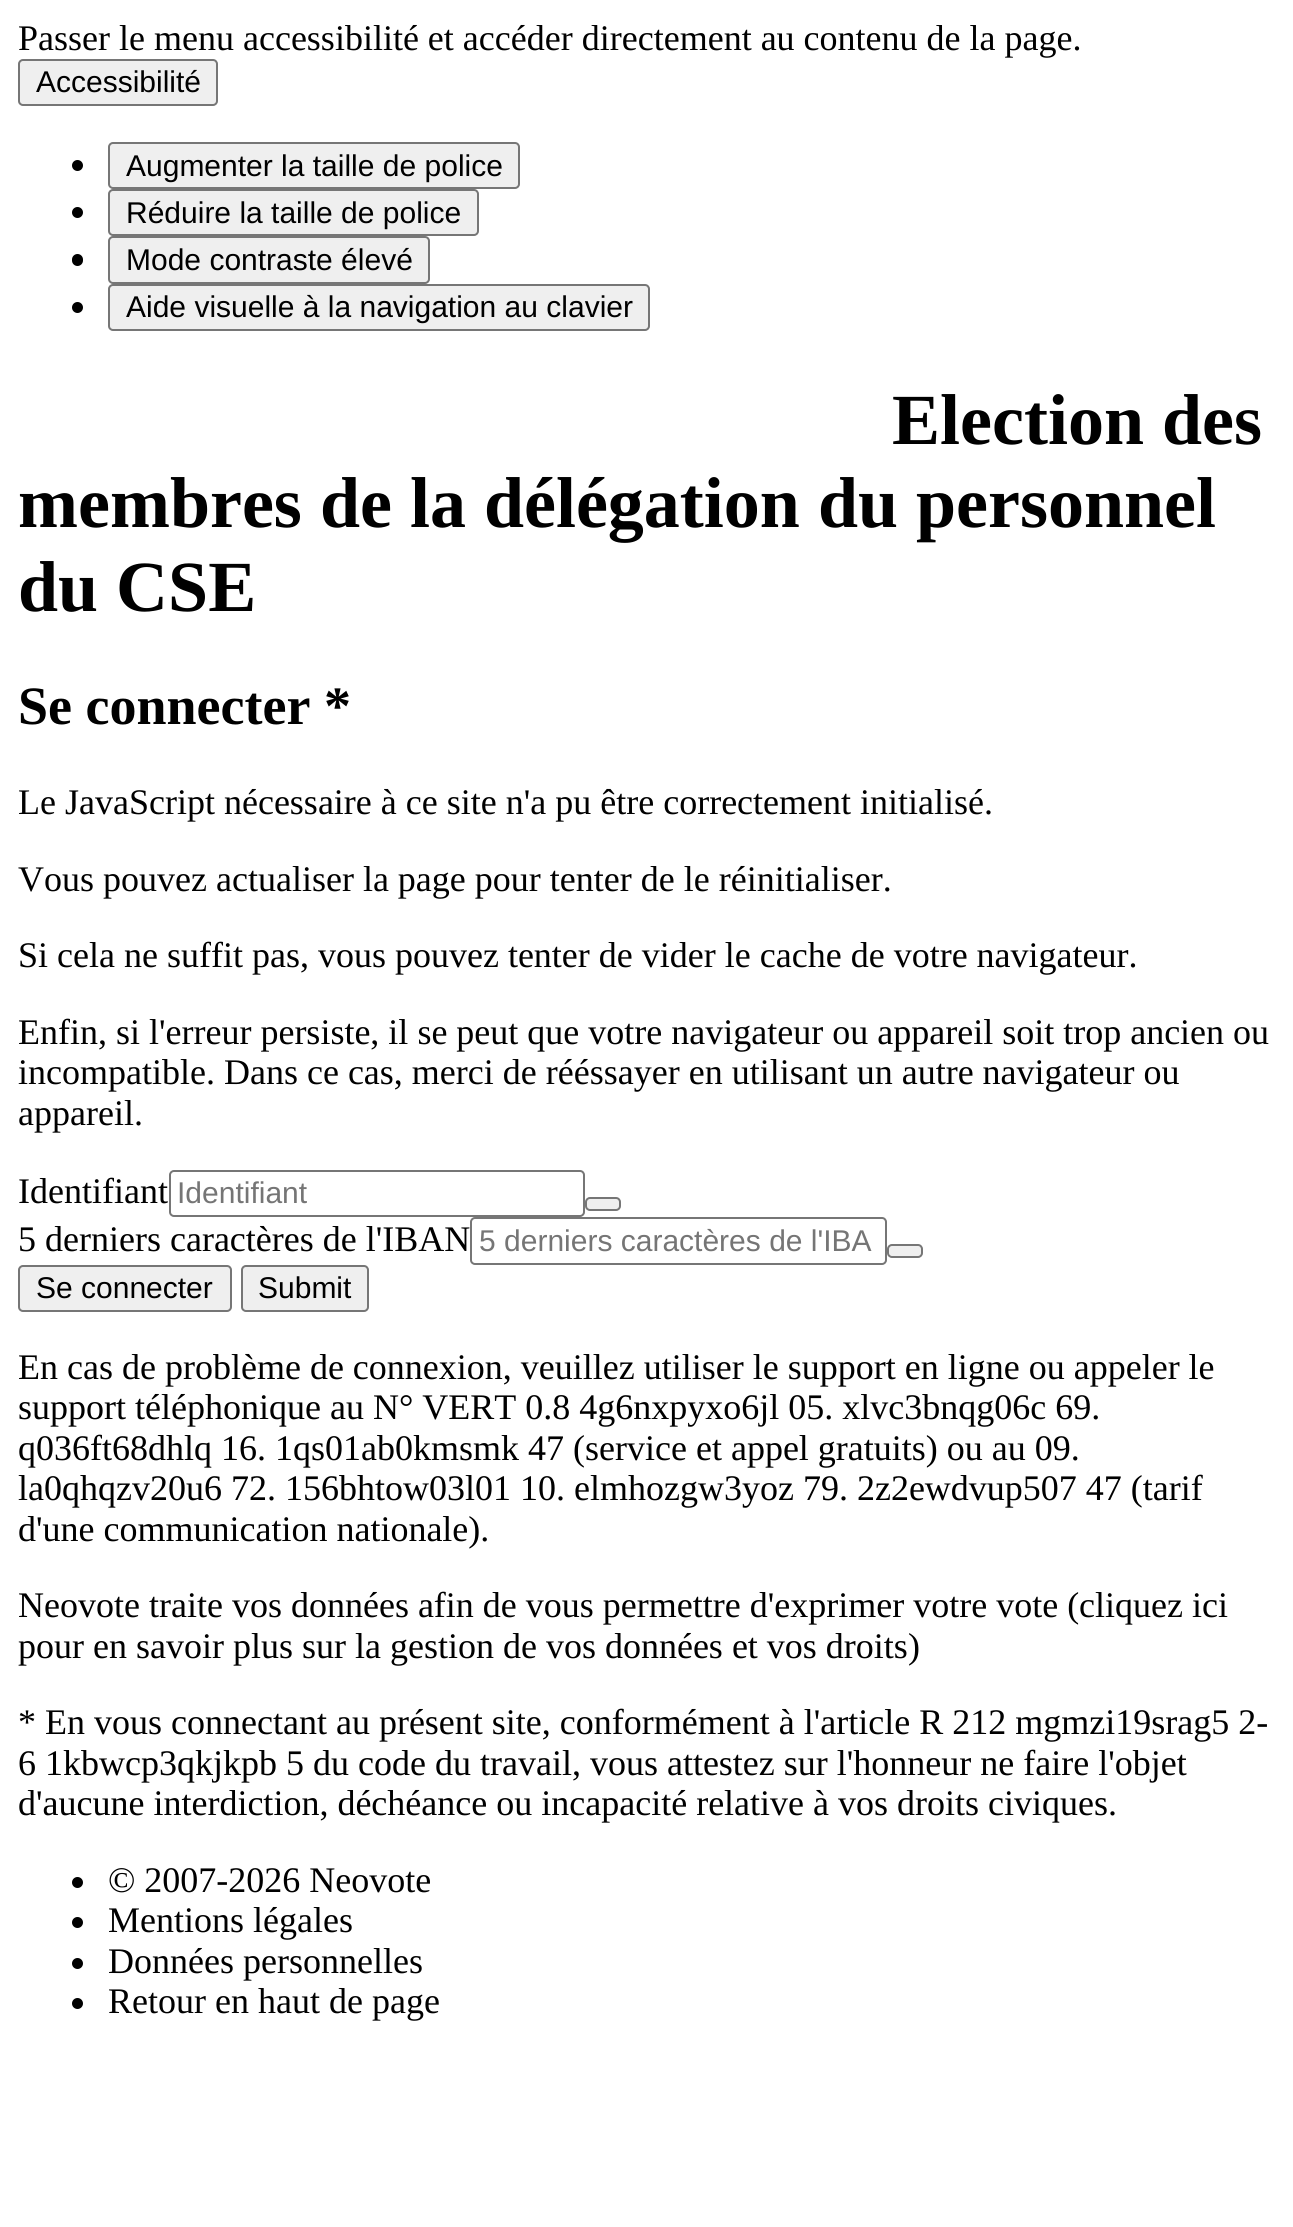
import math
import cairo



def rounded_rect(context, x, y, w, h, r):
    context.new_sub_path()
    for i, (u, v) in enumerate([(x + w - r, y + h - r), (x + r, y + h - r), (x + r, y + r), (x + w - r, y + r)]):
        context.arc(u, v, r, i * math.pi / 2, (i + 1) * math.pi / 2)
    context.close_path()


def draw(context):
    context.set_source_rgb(1, 1, 1)
    context.paint()
    context.set_source_rgb(239 / 255, 239 / 255, 239 / 255)
    rounded_rect(context, 19, 60, 198, 45, 4)
    context.fill_preserve()
    context.set_source_rgb(118 / 255, 118 / 255, 118 / 255)
    context.stroke()
    context.set_source_rgb(0, 0, 0)
    context.arc(77.5, 165.5, 5.5, 0, 2 * math.pi)
    context.fill()
    context.set_source_rgb(239 / 255, 239 / 255, 239 / 255)
    rounded_rect(context, 109, 143, 410, 45, 4)
    context.fill_preserve()
    context.set_source_rgb(118 / 255, 118 / 255, 118 / 255)
    context.stroke()
    context.set_source_rgb(0, 0, 0)
    context.arc(77.5, 212.5, 5.5, 0, 2 * math.pi)
    context.fill()
    context.set_source_rgb(239 / 255, 239 / 255, 239 / 255)
    rounded_rect(context, 109, 190, 369, 45, 4)
    context.fill_preserve()
    context.set_source_rgb(118 / 255, 118 / 255, 118 / 255)
    context.stroke()
    context.set_source_rgb(0, 0, 0)
    rounded_rect(context, 72, 254, 11, 12, 5.5)
    context.fill()
    context.set_source_rgb(239 / 255, 239 / 255, 239 / 255)
    rounded_rect(context, 109, 237, 320, 46, 4)
    context.fill_preserve()
    context.set_source_rgb(118 / 255, 118 / 255, 118 / 255)
    context.stroke()
    context.set_source_rgb(0, 0, 0)
    context.arc(77.5, 307.5, 5.5, 0, 2 * math.pi)
    context.fill()
    context.set_source_rgb(239 / 255, 239 / 255, 239 / 255)
    rounded_rect(context, 109, 285, 540, 45, 4)
    context.fill_preserve()
    context.set_source_rgb(118 / 255, 118 / 255, 118 / 255)
    context.stroke()
    rounded_rect(context, 170, 1171, 414, 45, 4)
    context.stroke()
    context.set_source_rgb(239 / 255, 239 / 255, 239 / 255)
    rounded_rect(context, 586, 1198, 34, 12, 4)
    context.fill_preserve()
    context.set_source_rgb(118 / 255, 118 / 255, 118 / 255)
    context.stroke()
    rounded_rect(context, 471, 1218, 415, 46, 4)
    context.stroke()
    context.set_source_rgb(239 / 255, 239 / 255, 239 / 255)
    rounded_rect(context, 888, 1245, 34, 12, 4)
    context.fill_preserve()
    context.set_source_rgb(118 / 255, 118 / 255, 118 / 255)
    context.stroke()
    context.set_source_rgb(239 / 255, 239 / 255, 239 / 255)
    rounded_rect(context, 19, 1266, 212, 45, 4)
    context.fill_preserve()
    context.set_source_rgb(118 / 255, 118 / 255, 118 / 255)
    context.stroke()
    context.set_source_rgb(239 / 255, 239 / 255, 239 / 255)
    rounded_rect(context, 242, 1266, 126, 45, 4)
    context.fill_preserve()
    context.set_source_rgb(118 / 255, 118 / 255, 118 / 255)
    context.stroke()
    context.set_source_rgb(0, 0, 0)
    context.arc(77.5, 1882.5, 5.5, 0, 2 * math.pi)
    context.fill()
    context.arc(77.5, 1922.5, 5.5, 0, 2 * math.pi)
    context.fill()
    context.arc(77.5, 1963.5, 5.5, 0, 2 * math.pi)
    context.fill()
    context.arc(77.5, 2003.5, 5.5, 0, 2 * math.pi)
    context.fill()
    context.select_font_face("Liberation Serif")
    context.set_font_size(36)
    context.move_to(18, 50)
    context.show_text("Passer le menu accessibilité et accéder directement au contenu de la page.")
    context.select_font_face("Liberation Sans")
    context.set_font_size(30)
    context.move_to(36, 92)
    context.show_text("Accessibilité")
    context.move_to(126, 176)
    context.show_text("Augmenter la taille de police")
    context.move_to(126, 223)
    context.show_text("Réduire la taille de police")
    context.move_to(126, 270)
    context.show_text("Mode contraste élevé")
    context.move_to(126, 317)
    context.show_text("Aide visuelle à la navigation au clavier")
    context.select_font_face("Liberation Serif", cairo.FontSlant.NORMAL, cairo.FontWeight.BOLD)
    context.set_font_size(72)
    context.move_to(892, 444)
    context.show_text("Election des")
    context.move_to(18, 527)
    context.show_text("membres de la délégation du personnel")
    context.move_to(18, 611)
    context.show_text("du CSE")
    context.set_font_size(54)
    context.move_to(18, 724)
    context.show_text("Se connecter *")
    context.select_font_face("Liberation Serif")
    context.set_font_size(36)
    context.move_to(18, 814)
    context.show_text("Le JavaScript nécessaire à ce site n'a pu être correctement initialisé.")
    context.move_to(18, 891)
    context.show_text("Vous pouvez actualiser la page pour tenter de le réinitialiser.")
    context.move_to(18, 967)
    context.show_text("Si cela ne suffit pas, vous pouvez tenter de vider le cache de votre navigateur.")
    context.move_to(18, 1044)
    context.show_text("Enfin, si l'erreur persiste, il se peut que votre navigateur ou appareil soit trop ancien ou")
    context.move_to(18, 1084)
    context.show_text("incompatible. Dans ce cas, merci de rééssayer en utilisant un autre navigateur ou")
    context.move_to(18, 1125)
    context.show_text("appareil.")
    context.move_to(18, 1203)
    context.show_text("Identifiant")
    context.select_font_face("Liberation Sans")
    context.set_font_size(30)
    context.set_source_rgb(117 / 255, 117 / 255, 117 / 255)
    context.move_to(177, 1203)
    context.show_text("Identifiant")
    context.select_font_face("Liberation Serif")
    context.set_font_size(36)
    context.set_source_rgb(0, 0, 0)
    context.move_to(18, 1251)
    context.show_text("5 derniers caractères de l'IBAN")
    context.select_font_face("Liberation Sans")
    context.set_font_size(30)
    context.set_source_rgb(117 / 255, 117 / 255, 117 / 255)
    context.move_to(479, 1251)
    context.show_text("5 derniers caractères de l'IBA")
    context.set_source_rgb(0, 0, 0)
    context.move_to(36, 1298)
    context.show_text("Se connecter")
    context.move_to(258, 1298)
    context.show_text("Submit")
    context.select_font_face("Liberation Serif")
    context.set_font_size(36)
    context.move_to(18, 1379)
    context.show_text("En cas de problème de connexion, veuillez utiliser le support en ligne ou appeler le")
    context.move_to(18, 1419)
    context.show_text("support téléphonique au N° VERT 0.8 4g6nxpyxo6jl 05. xlvc3bnqg06c 69.")
    context.move_to(18, 1460)
    context.show_text("q036ft68dhlq 16. 1qs01ab0kmsmk 47 (service et appel gratuits) ou au 09.")
    context.move_to(18, 1500)
    context.show_text("la0qhqzv20u6 72. 156bhtow03l01 10. elmhozgw3yoz 79. 2z2ewdvup507 47 (tarif")
    context.move_to(18, 1541)
    context.show_text("d'une communication nationale).")
    context.move_to(18, 1617)
    context.show_text("Neovote traite vos données afin de vous permettre d'exprimer votre vote (cliquez ici")
    context.move_to(18, 1658)
    context.show_text("pour en savoir plus sur la gestion de vos données et vos droits)")
    context.move_to(18, 1734)
    context.show_text("* En vous connectant au présent site, conformément à l'article R 212 mgmzi19srag5 2-")
    context.move_to(18, 1775)
    context.show_text("6 1kbwcp3qkjkpb 5 du code du travail, vous attestez sur l'honneur ne faire l'objet")
    context.move_to(18, 1815)
    context.show_text("d'aucune interdiction, déchéance ou incapacité relative à vos droits civiques.")
    context.move_to(108, 1892)
    context.show_text("© 2007-2026 Neovote")
    context.move_to(108, 1932)
    context.show_text("Mentions légales")
    context.move_to(108, 1973)
    context.show_text("Données personnelles")
    context.move_to(108, 2013)
    context.show_text("Retour en haut de page")


surface = cairo.ImageSurface(cairo.Format.RGB24, 1293, 2227)
context = cairo.Context(surface)
options = cairo.FontOptions()
options.set_hint_metrics(cairo.HintMetrics.OFF)
options.set_hint_style(cairo.HintStyle.NONE)
context.set_font_options(options)
context.set_miter_limit(4)
draw(context)
surface.write_to_png("out.png")
